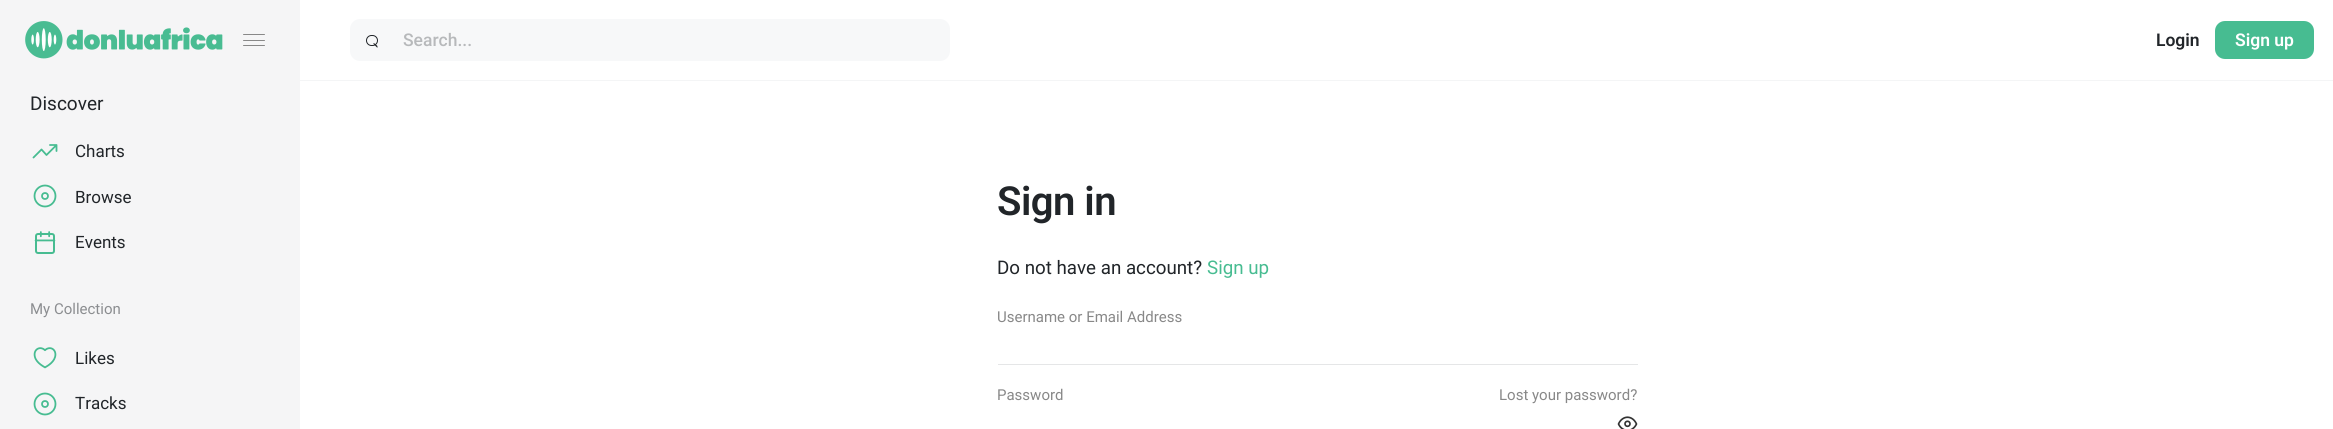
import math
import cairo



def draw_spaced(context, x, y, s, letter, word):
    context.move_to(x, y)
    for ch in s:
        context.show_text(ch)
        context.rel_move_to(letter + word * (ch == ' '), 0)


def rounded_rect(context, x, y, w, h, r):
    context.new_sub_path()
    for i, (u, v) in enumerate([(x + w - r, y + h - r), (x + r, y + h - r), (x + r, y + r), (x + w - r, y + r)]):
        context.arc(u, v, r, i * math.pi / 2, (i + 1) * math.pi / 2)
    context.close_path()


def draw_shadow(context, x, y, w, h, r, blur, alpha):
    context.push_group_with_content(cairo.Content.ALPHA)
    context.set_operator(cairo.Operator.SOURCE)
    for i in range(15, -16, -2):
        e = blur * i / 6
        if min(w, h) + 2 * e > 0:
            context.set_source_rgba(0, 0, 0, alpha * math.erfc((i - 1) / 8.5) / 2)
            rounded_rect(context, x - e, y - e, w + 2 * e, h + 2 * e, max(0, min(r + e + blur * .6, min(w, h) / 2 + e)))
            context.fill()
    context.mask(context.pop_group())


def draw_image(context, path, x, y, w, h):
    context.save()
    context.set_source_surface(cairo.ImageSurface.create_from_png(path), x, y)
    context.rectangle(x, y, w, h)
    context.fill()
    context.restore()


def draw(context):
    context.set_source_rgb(1, 1, 1)
    context.paint()
    context.save()
    context.rectangle(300, 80, 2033, 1)
    context.clip()
    context.set_source_rgb(130 / 255, 140 / 255, 150 / 255)
    draw_shadow(context, 0, 1, 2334, 80, 0, 0.5, 0.1)
    context.restore()
    context.set_source_rgb(247 / 255, 248 / 255, 249 / 255)
    rounded_rect(context, 350, 19, 600, 42, 10)
    context.fill()
    rounded_rect(context, 366.5, 35.5, 11, 10, 5)
    context.set_source_rgb(33 / 255, 37 / 255, 41 / 255)
    context.set_line_width(1)
    context.stroke()
    context.new_path()
    context.move_to(374.5, 43.5)
    context.line_to(377, 45.5)
    context.curve_to(378, 47, 377.5, 48, 377, 47.5)
    context.line_to(373.5, 44)
    context.curve_to(373, 43.5, 374, 42.5, 374.5, 43.5)
    context.close_path()
    context.fill()
    context.set_source_rgb(71 / 255, 188 / 255, 145 / 255)
    rounded_rect(context, 2215, 21, 99, 38, 10)
    context.fill()
    context.set_source_rgb(245 / 255, 245 / 255, 246 / 255)
    context.rectangle(0, 0, 300, 429)
    context.fill()
    draw_image(context, "images/1.png", 25, 21, 198, 38)
    context.set_source_rgb(136 / 255, 136 / 255, 136 / 255)
    rounded_rect(context, 243, 40, 22, 1, 0.5)
    context.fill()
    rounded_rect(context, 243, 34, 22, 1, 0.5)
    context.fill()
    rounded_rect(context, 243, 45, 22, 1, 0.5)
    context.fill()
    context.new_path()
    context.move_to(56.5, 145)
    context.line_to(46.5, 155)
    context.line_to(41.5, 149.5)
    context.line_to(33.5, 157.5)
    context.move_to(50, 145)
    context.line_to(56.5, 145)
    context.line_to(56.5, 151)
    context.set_source_rgb(71 / 255, 188 / 255, 145 / 255)
    context.set_line_width(1.8)
    context.set_line_cap(cairo.LineCap.ROUND)
    context.set_line_join(cairo.LineJoin.ROUND)
    context.stroke()
    context.arc(45, 196, 10.5, 0, 2 * math.pi)
    context.set_line_cap(cairo.LineCap.BUTT)
    context.set_line_join(cairo.LineJoin.MITER)
    context.stroke()
    context.arc(45, 196, 3, 0, 2 * math.pi)
    context.stroke()
    draw_image(context, "images/2.png", 34, 231, 22, 23)
    draw_image(context, "images/3.png", 33, 347, 24, 22)
    context.arc(45, 404, 10.5, 0, 2 * math.pi)
    context.stroke()
    context.arc(45, 404, 3, 0, 2 * math.pi)
    context.stroke()
    context.set_source_rgb(229 / 255, 230 / 255, 231 / 255)
    context.rectangle(998, 364, 640, 1)
    context.fill()
    context.new_path()
    context.move_to(1618.5, 424)
    context.curve_to(1622.5, 415, 1632.5, 415, 1636.5, 424)
    context.curve_to(1632.5, 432.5, 1622.5, 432.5, 1618.5, 424)
    context.close_path()
    context.set_source_rgb(51 / 255, 51 / 255, 51 / 255)
    context.set_line_width(1.7)
    context.set_line_cap(cairo.LineCap.ROUND)
    context.set_line_join(cairo.LineJoin.ROUND)
    context.stroke()
    context.arc(1627.5, 423.8, 2.5, 0, 2 * math.pi)
    context.set_line_cap(cairo.LineCap.BUTT)
    context.set_line_join(cairo.LineJoin.MITER)
    context.stroke()
    context.select_font_face("Roboto Medium")
    context.set_font_size(17.5)
    context.set_source_rgb(183 / 255, 185 / 255, 187 / 255)
    context.move_to(403, 46)
    context.show_text("Search...")
    context.select_font_face("Roboto SemiBold")
    context.set_source_rgb(33 / 255, 37 / 255, 41 / 255)
    context.move_to(2156, 46)
    context.show_text("Login")
    context.set_source_rgb(1, 1, 1)
    context.move_to(2235, 46)
    context.show_text("Sign up")
    context.select_font_face("Roboto")
    context.set_font_size(19)
    context.set_source_rgb(33 / 255, 37 / 255, 41 / 255)
    context.move_to(30, 110)
    context.show_text("Discover")
    context.set_font_size(17)
    context.move_to(75, 157)
    context.show_text("Charts")
    context.move_to(75, 203)
    context.show_text("Browse")
    context.move_to(75, 248)
    context.show_text("Events")
    context.set_font_size(15)
    context.set_source_rgb(139 / 255, 141 / 255, 144 / 255)
    context.move_to(30, 314)
    context.show_text("My Collection")
    context.set_font_size(17)
    context.set_source_rgb(33 / 255, 37 / 255, 41 / 255)
    context.move_to(75, 364)
    context.show_text("Likes")
    context.move_to(75, 409)
    context.show_text("Tracks")
    context.select_font_face("Roboto SemiBold")
    context.set_font_size(40)
    draw_spaced(context, 997, 215, "Sign in", -0.5, 0)
    context.select_font_face("Roboto")
    context.set_font_size(18.75)
    context.move_to(997, 274)
    context.show_text("Do not have an account?")
    context.set_source_rgb(71 / 255, 188 / 255, 145 / 255)
    context.move_to(1207, 274)
    context.show_text("Sign up")
    context.set_font_size(15)
    context.set_source_rgb(136 / 255, 136 / 255, 136 / 255)
    context.move_to(997, 322)
    context.show_text("Username or Email Address")
    context.move_to(997, 400)
    context.show_text("Password")
    context.move_to(1499, 400)
    context.show_text("Lost your password?")


surface = cairo.ImageSurface(cairo.Format.RGB24, 2333, 429)
context = cairo.Context(surface)
options = cairo.FontOptions()
options.set_hint_metrics(cairo.HintMetrics.OFF)
options.set_hint_style(cairo.HintStyle.NONE)
context.set_font_options(options)
context.set_miter_limit(4)
draw(context)
surface.write_to_png("out.png")
